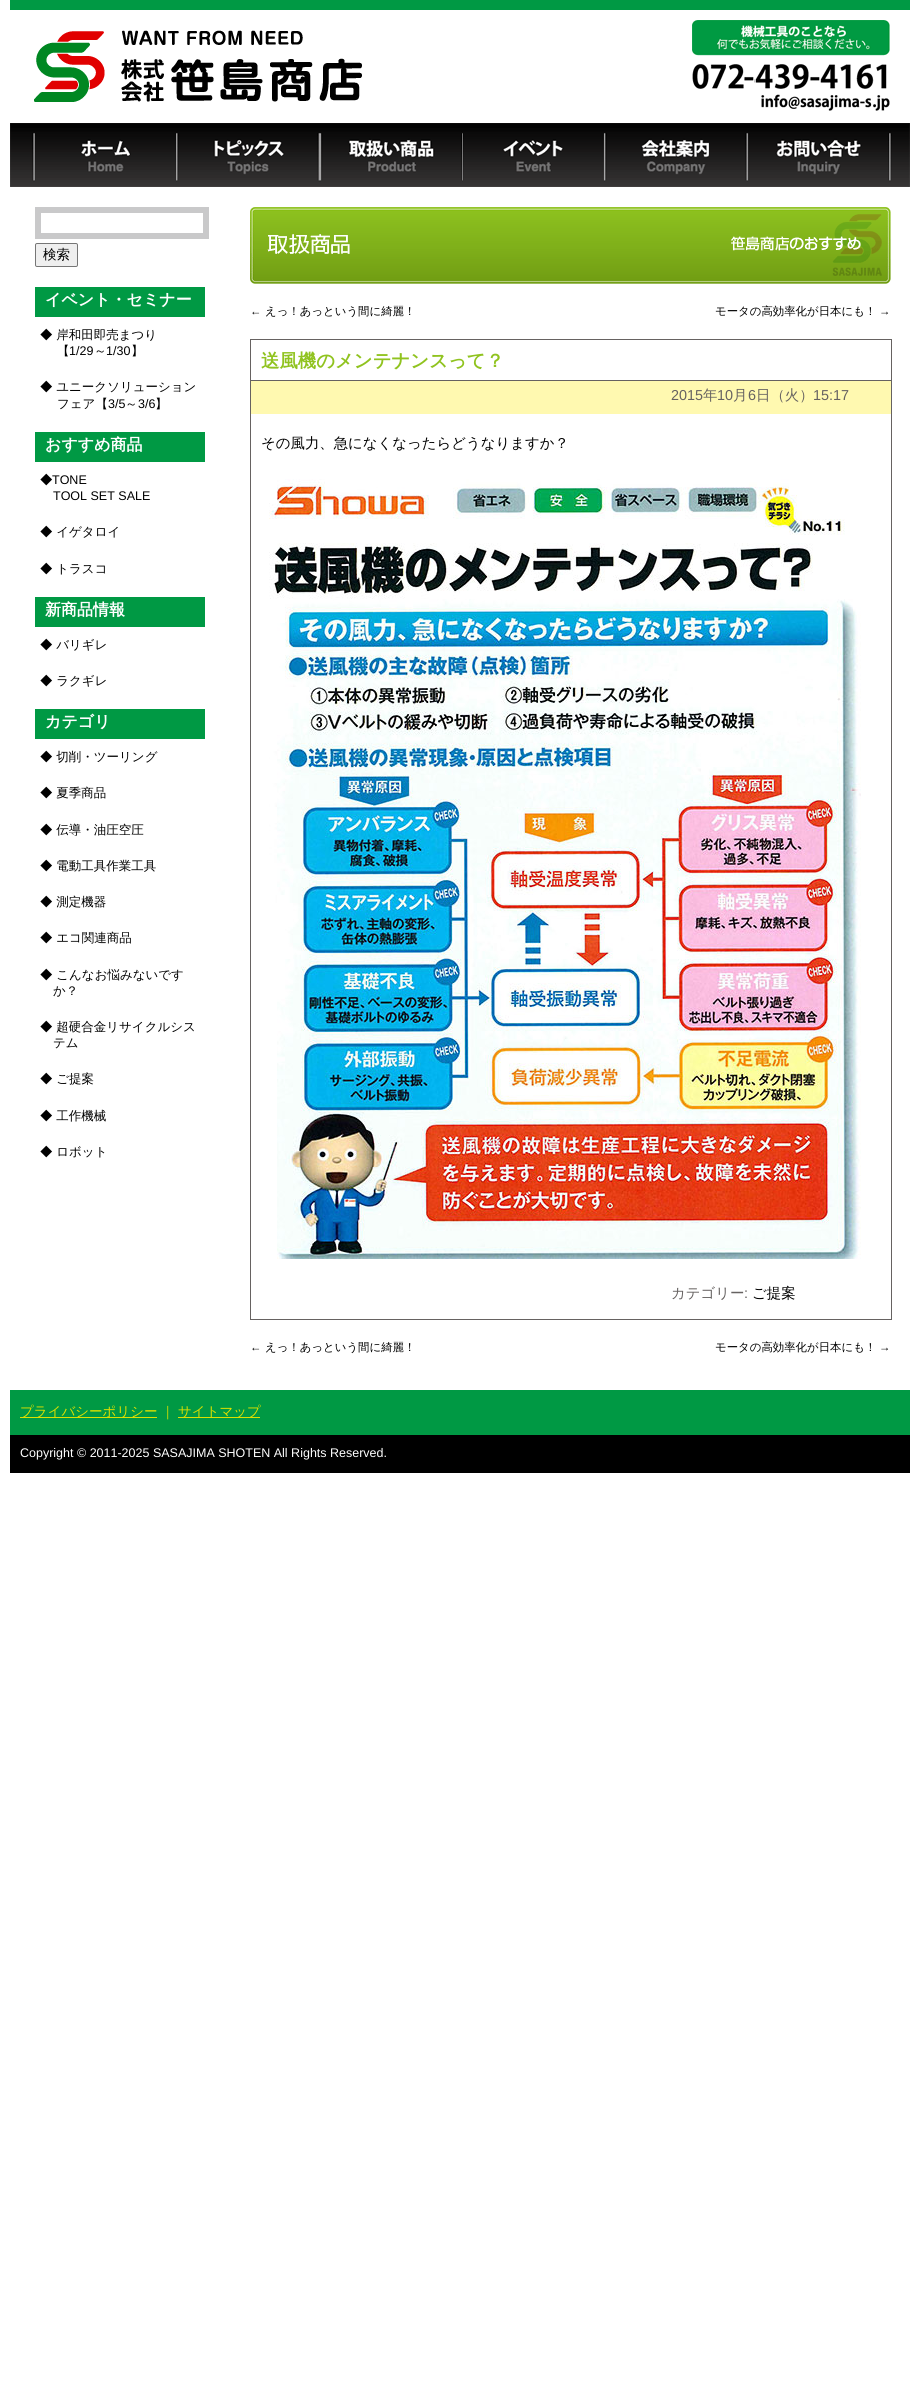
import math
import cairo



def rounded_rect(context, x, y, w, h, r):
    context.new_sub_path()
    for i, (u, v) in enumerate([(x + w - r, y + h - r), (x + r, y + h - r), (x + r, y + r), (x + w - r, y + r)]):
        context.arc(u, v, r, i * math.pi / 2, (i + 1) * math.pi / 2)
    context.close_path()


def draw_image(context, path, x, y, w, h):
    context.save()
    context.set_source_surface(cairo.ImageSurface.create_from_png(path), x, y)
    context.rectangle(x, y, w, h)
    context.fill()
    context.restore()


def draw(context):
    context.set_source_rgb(1, 1, 1)
    context.paint()
    context.set_source_rgb(0, 153 / 255, 68 / 255)
    context.rectangle(10, 0, 900, 10)
    context.fill()
    draw_image(context, "images/1.png", 34, 30, 328, 72)
    draw_image(context, "images/2.png", 692, 20, 198, 91)
    draw_image(context, "images/3.png", 10, 123, 900, 64)
    draw_image(context, "images/4.png", 320, 133, 142, 49)
    context.rectangle(38, 210, 168, 26)
    context.set_source_rgb(201 / 255, 201 / 255, 202 / 255)
    context.set_line_width(6)
    context.stroke()
    context.set_source_rgb(239 / 255, 239 / 255, 239 / 255)
    rounded_rect(context, 35.5, 243.5, 42, 23, 1.5)
    context.fill_preserve()
    context.set_source_rgb(118 / 255, 118 / 255, 118 / 255)
    context.set_line_width(1)
    context.stroke()
    context.set_source_rgb(0, 153 / 255, 68 / 255)
    context.rectangle(35, 287, 170, 30)
    context.fill()
    context.rectangle(35, 432, 170, 30)
    context.fill()
    context.rectangle(35, 597, 170, 30)
    context.fill()
    context.rectangle(35, 709, 170, 30)
    context.fill()
    draw_image(context, "images/5.png", 250, 207, 641, 77)
    context.rectangle(250.5, 339.5, 641, 41)
    context.set_source_rgb(102 / 255, 98 / 255, 97 / 255)
    context.stroke()
    context.set_source_rgb(1, 249 / 255, 176 / 255)
    context.rectangle(251, 381, 640, 33)
    context.fill()
    context.set_source_rgb(102 / 255, 98 / 255, 97 / 255)
    context.rectangle(891, 381, 1, 939)
    context.fill()
    context.rectangle(250, 381, 1, 898)
    context.fill()
    draw_image(context, "images/6.png", 269, 479, 592, 780)
    context.rectangle(250, 1319, 642, 1)
    context.fill()
    context.rectangle(250, 1279, 1, 41)
    context.fill()
    context.set_source_rgb(0, 153 / 255, 68 / 255)
    context.rectangle(10, 1390, 900, 45)
    context.fill()
    context.set_source_rgb(220 / 255, 224 / 255, 0)
    context.rectangle(20, 1417, 137, 1)
    context.fill()
    context.rectangle(178, 1417, 82, 1)
    context.fill()
    context.set_source_rgb(0, 0, 0)
    context.rectangle(10, 1435, 900, 38)
    context.fill()
    context.select_font_face("WenQuanYi Zen Hei Medium")
    context.set_font_size(13.5)
    context.move_to(43, 259)
    context.show_text("検索")
    context.select_font_face("WenQuanYi Zen Hei", cairo.FontSlant.NORMAL, cairo.FontWeight.BOLD)
    context.set_font_size(16)
    context.set_source_rgb(1, 1, 1)
    context.move_to(45, 305)
    context.show_text("イベント・セミナー")
    context.select_font_face("WenQuanYi Zen Hei Medium")
    context.set_font_size(12.5)
    context.set_source_rgb(0, 0, 0)
    context.move_to(40, 339)
    context.show_text("◆ 岸和田即売まつり")
    context.move_to(57, 355)
    context.show_text("【")
    context.select_font_face("Liberation Sans")
    context.move_to(69, 355)
    context.show_text("1/29")
    context.select_font_face("WenQuanYi Zen Hei Medium")
    context.move_to(94, 355)
    context.show_text("～")
    context.select_font_face("Liberation Sans")
    context.move_to(106, 355)
    context.show_text("1/30")
    context.select_font_face("WenQuanYi Zen Hei Medium")
    context.move_to(131, 355)
    context.show_text("】")
    context.move_to(40, 391)
    context.show_text("◆ ユニークソリューション")
    context.move_to(57, 408)
    context.show_text("フェア【")
    context.select_font_face("Liberation Sans")
    context.move_to(108, 408)
    context.show_text("3/5")
    context.select_font_face("WenQuanYi Zen Hei Medium")
    context.move_to(125, 408)
    context.show_text("～")
    context.select_font_face("Liberation Sans")
    context.move_to(138, 408)
    context.show_text("3/6")
    context.select_font_face("WenQuanYi Zen Hei Medium")
    context.move_to(155, 408)
    context.show_text("】")
    context.select_font_face("WenQuanYi Zen Hei", cairo.FontSlant.NORMAL, cairo.FontWeight.BOLD)
    context.set_font_size(16)
    context.set_source_rgb(1, 1, 1)
    context.move_to(45, 450)
    context.show_text("おすすめ商品")
    context.select_font_face("WenQuanYi Zen Hei Medium")
    context.set_font_size(12.5)
    context.set_source_rgb(0, 0, 0)
    context.move_to(40, 484)
    context.show_text("◆")
    context.select_font_face("Liberation Sans")
    context.move_to(52, 484)
    context.show_text("TONE")
    context.move_to(53, 500)
    context.show_text("TOOL SET SALE")
    context.select_font_face("WenQuanYi Zen Hei Medium")
    context.move_to(40, 536)
    context.show_text("◆ イゲタロイ")
    context.move_to(40, 573)
    context.show_text("◆ トラスコ")
    context.select_font_face("WenQuanYi Zen Hei", cairo.FontSlant.NORMAL, cairo.FontWeight.BOLD)
    context.set_font_size(16)
    context.set_source_rgb(1, 1, 1)
    context.move_to(45, 615)
    context.show_text("新商品情報")
    context.select_font_face("WenQuanYi Zen Hei Medium")
    context.set_font_size(12.5)
    context.set_source_rgb(0, 0, 0)
    context.move_to(40, 649)
    context.show_text("◆ バリギレ")
    context.move_to(40, 685)
    context.show_text("◆ ラクギレ")
    context.select_font_face("WenQuanYi Zen Hei", cairo.FontSlant.NORMAL, cairo.FontWeight.BOLD)
    context.set_font_size(16)
    context.set_source_rgb(1, 1, 1)
    context.move_to(45, 727)
    context.show_text("カテゴリ")
    context.select_font_face("WenQuanYi Zen Hei Medium")
    context.set_font_size(12.5)
    context.set_source_rgb(0, 0, 0)
    context.move_to(40, 761)
    context.show_text("◆ 切削・ツーリング")
    context.move_to(40, 797)
    context.show_text("◆ 夏季商品")
    context.move_to(40, 834)
    context.show_text("◆ 伝導・油圧空圧")
    context.move_to(40, 870)
    context.show_text("◆ 電動工具作業工具")
    context.move_to(40, 906)
    context.show_text("◆ 測定機器")
    context.move_to(40, 942)
    context.show_text("◆ エコ関連商品")
    context.move_to(40, 979)
    context.show_text("◆ こんなお悩みないです")
    context.move_to(53, 995)
    context.show_text("か？")
    context.move_to(40, 1031)
    context.show_text("◆ 超硬合金リサイクルシス")
    context.move_to(53, 1047)
    context.show_text("テム")
    context.move_to(40, 1083)
    context.show_text("◆ ご提案")
    context.move_to(40, 1120)
    context.show_text("◆ 工作機械")
    context.move_to(40, 1156)
    context.show_text("◆ ロボット")
    context.select_font_face("Liberation Sans")
    context.set_font_size(11.4)
    context.move_to(250, 315)
    context.show_text("←")
    context.select_font_face("WenQuanYi Zen Hei Medium")
    context.move_to(265, 315)
    context.show_text("えっ！あっという間に綺麗！")
    context.move_to(715, 315)
    context.show_text("モータの高効率化が日本にも！")
    context.select_font_face("Liberation Sans")
    context.move_to(879, 315)
    context.show_text("→")
    context.select_font_face("WenQuanYi Zen Hei", cairo.FontSlant.NORMAL, cairo.FontWeight.BOLD)
    context.set_font_size(18.4)
    context.set_source_rgb(144 / 255, 195 / 255, 31 / 255)
    context.move_to(261, 367)
    context.show_text("送風機のメンテナンスって？")
    context.select_font_face("Liberation Sans")
    context.set_font_size(14.4)
    context.set_source_rgb(102 / 255, 98 / 255, 97 / 255)
    context.move_to(671, 400)
    context.show_text("2015")
    context.select_font_face("WenQuanYi Zen Hei Medium")
    context.move_to(703, 400)
    context.show_text("年")
    context.select_font_face("Liberation Sans")
    context.move_to(717, 400)
    context.show_text("10")
    context.select_font_face("WenQuanYi Zen Hei Medium")
    context.move_to(733, 400)
    context.show_text("月")
    context.select_font_face("Liberation Sans")
    context.move_to(748, 400)
    context.show_text("6")
    context.select_font_face("WenQuanYi Zen Hei Medium")
    context.move_to(756, 400)
    context.show_text("日（火）")
    context.select_font_face("Liberation Sans")
    context.move_to(813, 400)
    context.show_text("15:17")
    context.select_font_face("WenQuanYi Zen Hei Medium")
    context.set_source_rgb(0, 0, 0)
    context.move_to(261, 448)
    context.show_text("その風力、急になくなったらどうなりますか？")
    context.set_source_rgb(102 / 255, 98 / 255, 97 / 255)
    context.move_to(671, 1298)
    context.show_text("カテゴリー")
    context.select_font_face("Liberation Sans")
    context.move_to(744, 1298)
    context.show_text(":")
    context.select_font_face("WenQuanYi Zen Hei Medium")
    context.set_source_rgb(0, 0, 0)
    context.move_to(752, 1298)
    context.show_text("ご提案")
    context.select_font_face("Liberation Sans")
    context.set_font_size(11.4)
    context.move_to(250, 1351)
    context.show_text("←")
    context.select_font_face("WenQuanYi Zen Hei Medium")
    context.move_to(265, 1351)
    context.show_text("えっ！あっという間に綺麗！")
    context.move_to(715, 1351)
    context.show_text("モータの高効率化が日本にも！")
    context.select_font_face("Liberation Sans")
    context.move_to(879, 1351)
    context.show_text("→")
    context.select_font_face("WenQuanYi Zen Hei Medium")
    context.set_font_size(13.5)
    context.set_source_rgb(220 / 255, 224 / 255, 0)
    context.move_to(20, 1416)
    context.show_text("プライバシーポリシー")
    context.move_to(161, 1416)
    context.show_text("｜")
    context.move_to(178, 1416)
    context.show_text("サイトマップ")
    context.select_font_face("Liberation Sans")
    context.set_font_size(12.5)
    context.set_source_rgb(1, 1, 1)
    context.move_to(20, 1457)
    context.show_text("Copyright © 2011-2025 SASAJIMA SHOTEN All Rights Reserved.")


surface = cairo.ImageSurface(cairo.Format.RGB24, 920, 2390)
context = cairo.Context(surface)
options = cairo.FontOptions()
options.set_hint_metrics(cairo.HintMetrics.OFF)
options.set_hint_style(cairo.HintStyle.NONE)
context.set_font_options(options)
context.set_miter_limit(4)
draw(context)
surface.write_to_png("out.png")
